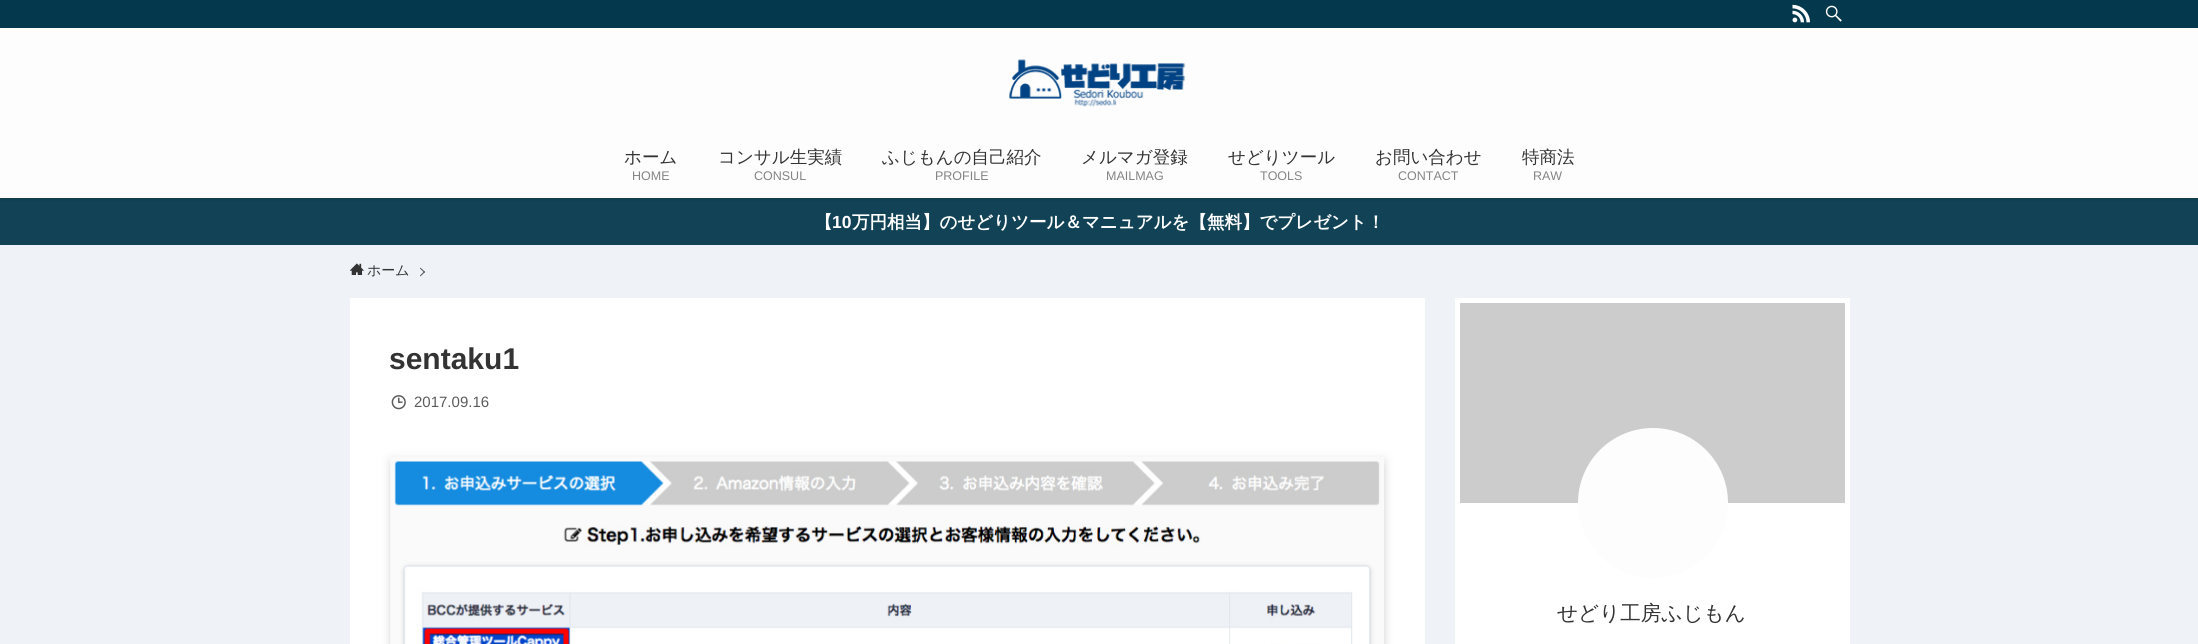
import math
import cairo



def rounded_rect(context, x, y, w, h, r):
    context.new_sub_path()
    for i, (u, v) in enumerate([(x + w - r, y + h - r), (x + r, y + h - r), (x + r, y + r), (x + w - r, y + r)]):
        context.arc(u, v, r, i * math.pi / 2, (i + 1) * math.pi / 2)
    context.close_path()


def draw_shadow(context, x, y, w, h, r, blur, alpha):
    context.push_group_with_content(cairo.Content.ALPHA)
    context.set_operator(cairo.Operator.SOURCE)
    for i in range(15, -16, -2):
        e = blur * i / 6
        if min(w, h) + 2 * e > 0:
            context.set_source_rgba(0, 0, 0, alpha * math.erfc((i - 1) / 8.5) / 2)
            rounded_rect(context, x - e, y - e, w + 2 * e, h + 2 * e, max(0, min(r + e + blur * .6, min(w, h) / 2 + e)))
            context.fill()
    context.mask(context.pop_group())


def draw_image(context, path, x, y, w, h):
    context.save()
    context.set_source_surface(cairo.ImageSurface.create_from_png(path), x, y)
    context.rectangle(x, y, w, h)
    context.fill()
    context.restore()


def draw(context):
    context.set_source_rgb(239 / 255, 243 / 255, 247 / 255)
    context.paint()
    context.set_source_rgb(17 / 255, 66 / 255, 85 / 255)
    context.rectangle(0, 198, 2198, 47)
    context.fill()
    context.set_source_rgb(0, 0, 0)
    draw_shadow(context, 0, 1, 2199, 198, 0, 2.5, 0.12)
    context.set_source_rgb(253 / 255, 253 / 255, 253 / 255)
    context.rectangle(0, 28, 2198, 170)
    context.fill()
    context.set_source_rgb(4 / 255, 56 / 255, 76 / 255)
    context.rectangle(0, 0, 2198, 28)
    context.fill()
    draw_image(context, "images/1.png", 1792, 4, 18, 19)
    draw_image(context, "images/2.png", 1825, 5, 17, 17)
    draw_image(context, "images/3.png", 1009, 59, 177, 48)
    draw_image(context, "images/4.png", 350, 263, 14, 12)
    context.set_source_rgb(89 / 255, 89 / 255, 90 / 255)
    context.new_path()
    context.move_to(420.5, 267.5)
    context.line_to(425, 272)
    context.line_to(424.5, 273)
    context.line_to(420, 268.5)
    context.close_path()
    context.fill()
    context.new_path()
    context.move_to(424.5, 271)
    context.line_to(425, 272)
    context.line_to(420.5, 276.5)
    context.line_to(420, 275.5)
    context.close_path()
    context.fill()
    context.set_source_rgb(1, 1, 1)
    context.rectangle(350, 298, 1075, 346)
    context.fill()
    draw_image(context, "images/5.png", 391, 395, 15, 15)
    context.set_source_rgb(0, 0, 0)
    draw_shadow(context, 395, 466, 985, 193, 0, 5, 0.2)
    draw_shadow(context, 390, 459, 995, 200, 0, 5, 0.1)
    draw_image(context, "images/6.png", 390, 457, 994, 187)
    context.set_source_rgb(1, 1, 1)
    context.rectangle(1455, 298, 395, 346)
    context.fill()
    context.set_source_rgb(204 / 255, 204 / 255, 204 / 255)
    context.rectangle(1460, 303, 385, 200)
    context.fill()
    context.set_source_rgb(253 / 255, 253 / 255, 253 / 255)
    context.arc(1653, 503, 72.5, 0, 2 * math.pi)
    context.fill_preserve()
    context.set_line_width(5)
    context.stroke()
    context.select_font_face("WenQuanYi Zen Hei Medium")
    context.set_font_size(17.5)
    context.set_source_rgb(51 / 255, 51 / 255, 51 / 255)
    context.move_to(624, 163)
    context.show_text("ホーム")
    context.select_font_face("Liberation Sans")
    context.set_font_size(12.5)
    context.set_source_rgb(132 / 255, 132 / 255, 132 / 255)
    context.move_to(632, 180)
    context.show_text("HOME")
    context.select_font_face("WenQuanYi Zen Hei Medium")
    context.set_font_size(17.5)
    context.set_source_rgb(51 / 255, 51 / 255, 51 / 255)
    context.move_to(718, 163)
    context.show_text("コンサル生実績")
    context.select_font_face("Liberation Sans")
    context.set_font_size(12.5)
    context.set_source_rgb(132 / 255, 132 / 255, 132 / 255)
    context.move_to(754, 180)
    context.show_text("CONSUL")
    context.select_font_face("WenQuanYi Zen Hei Medium")
    context.set_font_size(17.5)
    context.set_source_rgb(51 / 255, 51 / 255, 51 / 255)
    context.move_to(882, 163)
    context.show_text("ふじもんの自己紹介")
    context.select_font_face("Liberation Sans")
    context.set_font_size(12.5)
    context.set_source_rgb(132 / 255, 132 / 255, 132 / 255)
    context.move_to(935, 180)
    context.show_text("PROFILE")
    context.select_font_face("WenQuanYi Zen Hei Medium")
    context.set_font_size(17.5)
    context.set_source_rgb(51 / 255, 51 / 255, 51 / 255)
    context.move_to(1081, 163)
    context.show_text("メルマガ登録")
    context.select_font_face("Liberation Sans")
    context.set_font_size(12.5)
    context.set_source_rgb(132 / 255, 132 / 255, 132 / 255)
    context.move_to(1106, 180)
    context.show_text("MAILMAG")
    context.select_font_face("WenQuanYi Zen Hei Medium")
    context.set_font_size(17.5)
    context.set_source_rgb(51 / 255, 51 / 255, 51 / 255)
    context.move_to(1228, 163)
    context.show_text("せどりツール")
    context.select_font_face("Liberation Sans")
    context.set_font_size(12.5)
    context.set_source_rgb(132 / 255, 132 / 255, 132 / 255)
    context.move_to(1260, 180)
    context.show_text("TOOLS")
    context.select_font_face("WenQuanYi Zen Hei Medium")
    context.set_font_size(17.5)
    context.set_source_rgb(51 / 255, 51 / 255, 51 / 255)
    context.move_to(1375, 163)
    context.show_text("お問い合わせ")
    context.select_font_face("Liberation Sans")
    context.set_font_size(12.5)
    context.set_source_rgb(132 / 255, 132 / 255, 132 / 255)
    context.move_to(1398, 180)
    context.show_text("CONTACT")
    context.select_font_face("WenQuanYi Zen Hei Medium")
    context.set_font_size(17.5)
    context.set_source_rgb(51 / 255, 51 / 255, 51 / 255)
    context.move_to(1522, 163)
    context.show_text("特商法")
    context.select_font_face("Liberation Sans")
    context.set_font_size(12.5)
    context.set_source_rgb(132 / 255, 132 / 255, 132 / 255)
    context.move_to(1533, 180)
    context.show_text("RAW")
    context.select_font_face("WenQuanYi Zen Hei", cairo.FontSlant.NORMAL, cairo.FontWeight.BOLD)
    context.set_font_size(17.5)
    context.set_source_rgb(1, 1, 1)
    context.move_to(815, 228)
    context.show_text("【")
    context.select_font_face("Liberation Sans", cairo.FontSlant.NORMAL, cairo.FontWeight.BOLD)
    context.move_to(832, 228)
    context.show_text("10")
    context.select_font_face("WenQuanYi Zen Hei", cairo.FontSlant.NORMAL, cairo.FontWeight.BOLD)
    context.move_to(852, 228)
    context.show_text("万円相当】のせどりツール＆マニュアルを【無料】でプレゼント！")
    context.select_font_face("WenQuanYi Zen Hei Medium")
    context.set_font_size(14)
    context.set_source_rgb(51 / 255, 51 / 255, 51 / 255)
    context.move_to(367, 275)
    context.show_text("ホーム")
    context.select_font_face("Liberation Sans", cairo.FontSlant.NORMAL, cairo.FontWeight.BOLD)
    context.set_font_size(30)
    context.move_to(389, 369)
    context.show_text("sentaku1")
    context.select_font_face("Liberation Sans")
    context.set_font_size(15)
    context.set_source_rgb(92 / 255, 92 / 255, 92 / 255)
    context.move_to(414, 407)
    context.show_text("2017.09.16")
    context.select_font_face("WenQuanYi Zen Hei Medium")
    context.set_font_size(20.6)
    context.set_source_rgb(51 / 255, 51 / 255, 51 / 255)
    context.move_to(1557, 620)
    context.show_text("せどり工房ふじもん")


surface = cairo.ImageSurface(cairo.Format.RGB24, 2198, 644)
context = cairo.Context(surface)
options = cairo.FontOptions()
options.set_hint_metrics(cairo.HintMetrics.OFF)
options.set_hint_style(cairo.HintStyle.NONE)
context.set_font_options(options)
context.set_miter_limit(4)
draw(context)
surface.write_to_png("out.png")
